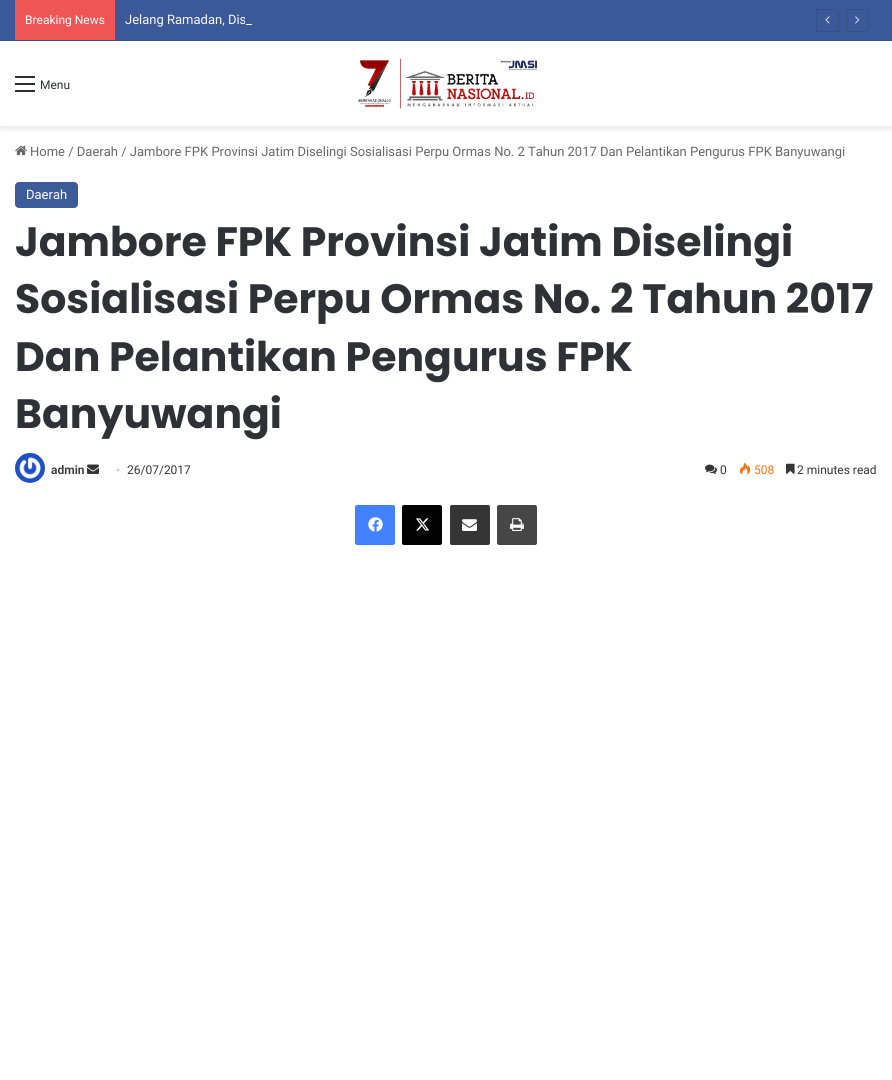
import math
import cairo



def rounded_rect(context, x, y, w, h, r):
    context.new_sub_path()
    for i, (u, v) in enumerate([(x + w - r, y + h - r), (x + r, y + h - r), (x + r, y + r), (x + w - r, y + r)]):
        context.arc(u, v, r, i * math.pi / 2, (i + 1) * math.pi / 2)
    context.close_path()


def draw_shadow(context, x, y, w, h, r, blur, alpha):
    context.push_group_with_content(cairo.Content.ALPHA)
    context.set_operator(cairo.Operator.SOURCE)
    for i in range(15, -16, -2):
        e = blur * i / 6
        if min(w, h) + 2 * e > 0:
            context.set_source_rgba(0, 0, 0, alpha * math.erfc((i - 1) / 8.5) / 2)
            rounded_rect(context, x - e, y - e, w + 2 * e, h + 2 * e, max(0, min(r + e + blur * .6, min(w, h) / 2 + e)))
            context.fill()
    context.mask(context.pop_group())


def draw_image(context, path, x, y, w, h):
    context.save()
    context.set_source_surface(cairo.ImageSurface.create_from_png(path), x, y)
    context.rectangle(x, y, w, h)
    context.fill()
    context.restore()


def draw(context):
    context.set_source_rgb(1, 1, 1)
    context.paint()
    context.save()
    context.rectangle(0, 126, 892, 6)
    context.clip()
    context.set_source_rgb(0, 0, 0)
    draw_shadow(context, 0, 44, 892, 85, 0, 3.5, 0.1)
    context.restore()
    context.set_source_rgb(59 / 255, 89 / 255, 152 / 255)
    context.rectangle(0, 0, 892, 40)
    context.fill()
    context.set_source_rgb(53 / 255, 80 / 255, 137 / 255)
    context.rectangle(0, 40, 892, 1)
    context.fill()
    context.set_source_rgb(240 / 255, 85 / 255, 85 / 255)
    context.rectangle(15, 0, 100, 40)
    context.fill()
    rounded_rect(context, 816.5, 9.5, 22, 22, 1.5)
    context.set_source_rgb(53 / 255, 80 / 255, 137 / 255)
    context.set_line_width(1)
    context.stroke()
    draw_image(context, "images/1.png", 825, 16, 5, 8)
    rounded_rect(context, 846.5, 9.5, 22, 22, 1.5)
    context.stroke()
    draw_image(context, "images/2.png", 855, 16, 5, 8)
    context.set_source_rgb(44 / 255, 47 / 255, 52 / 255)
    context.rectangle(15, 83, 20, 2)
    context.fill()
    context.rectangle(15, 76, 20, 2)
    context.fill()
    context.rectangle(15, 90, 20, 2)
    context.fill()
    draw_image(context, "images/3.png", 358, 58, 179, 51)
    draw_image(context, "images/4.png", 15, 145, 12, 11)
    context.set_source_rgb(61 / 255, 91 / 255, 153 / 255)
    rounded_rect(context, 15, 182, 63, 26, 4)
    context.fill()
    draw_image(context, "images/5.png", 15, 453, 30, 30)
    draw_image(context, "images/6.png", 87, 464, 12, 10)
    draw_image(context, "images/7.png", 705, 464, 12, 10)
    draw_image(context, "images/8.png", 739, 462, 12, 13)
    draw_image(context, "images/9.png", 786, 463, 9, 11)
    context.set_source_rgb(66 / 255, 129 / 255, 1)
    rounded_rect(context, 355, 505, 40, 40, 2)
    context.fill()
    draw_image(context, "images/10.png", 368, 517, 15, 15)
    context.set_source_rgb(3 / 255, 3 / 255, 3 / 255)
    rounded_rect(context, 402, 505, 40, 40, 2)
    context.fill()
    draw_image(context, "images/11.png", 415, 518, 15, 13)
    context.set_source_rgb(53 / 255, 53 / 255, 53 / 255)
    rounded_rect(context, 450, 505, 40, 40, 2)
    context.fill()
    draw_image(context, "images/12.png", 462, 519, 15, 12)
    context.set_source_rgb(70 / 255, 70 / 255, 70 / 255)
    rounded_rect(context, 497, 505, 40, 40, 2)
    context.fill()
    draw_image(context, "images/13.png", 510, 518, 14, 13)
    context.select_font_face("Roboto")
    context.set_font_size(12)
    context.set_source_rgb(1, 1, 1)
    context.move_to(25, 24)
    context.show_text("Breaking News")
    context.set_font_size(13)
    context.set_source_rgb(246 / 255, 247 / 255, 249 / 255)
    context.move_to(125, 24)
    context.show_text("Jelang Ramadan, Dis")
    context.set_source_rgb(59 / 255, 89 / 255, 152 / 255)
    context.rectangle(245, 17, 1, 7)
    context.fill()
    context.set_source_rgb(1, 1, 1)
    context.move_to(246, 24)
    context.show_text("_")
    context.set_font_size(12)
    context.set_source_rgb(46 / 255, 49 / 255, 54 / 255)
    context.move_to(40, 89)
    context.show_text("Menu")
    context.set_font_size(13)
    context.set_source_rgb(104 / 255, 104 / 255, 104 / 255)
    context.move_to(30, 156)
    context.show_text("Home / Daerah / Jambore FPK Provinsi Jatim Diselingi Sosialisasi Perpu Ormas No. 2 Tahun 2017 Dan Pelantikan Pengurus FPK Banyuwangi")
    context.set_source_rgb(1, 1, 1)
    context.move_to(26, 199)
    context.show_text("Daerah")
    context.select_font_face("Poppins", cairo.FontSlant.NORMAL, cairo.FontWeight.BOLD)
    context.set_font_size(41)
    context.set_source_rgb(46 / 255, 49 / 255, 54 / 255)
    context.move_to(15, 256)
    context.show_text("Jambore FPK Provinsi Jatim Diselingi")
    context.move_to(15, 313)
    context.show_text("Sosialisasi Perpu Ormas No. 2 Tahun 2017")
    context.move_to(15, 371)
    context.show_text("Dan Pelantikan Pengurus FPK")
    context.move_to(15, 428)
    context.show_text("Banyuwangi")
    context.select_font_face("Roboto SemiBold")
    context.set_font_size(12)
    context.set_source_rgb(53 / 255, 53 / 255, 53 / 255)
    context.move_to(51, 474)
    context.show_text("admin")
    context.select_font_face("Liberation Serif")
    context.set_source_rgb(205 / 255, 205 / 255, 205 / 255)
    context.move_to(116, 474)
    context.show_text("•")
    context.select_font_face("Roboto")
    context.set_source_rgb(53 / 255, 53 / 255, 53 / 255)
    context.move_to(127, 474)
    context.show_text("26/07/2017")
    context.move_to(720, 474)
    context.show_text("0")
    context.set_source_rgb(244 / 255, 118 / 255, 20 / 255)
    context.move_to(754, 474)
    context.show_text("508")
    context.set_source_rgb(53 / 255, 53 / 255, 53 / 255)
    context.move_to(797, 474)
    context.show_text("2 minutes read")


surface = cairo.ImageSurface(cairo.Format.RGB24, 892, 1080)
context = cairo.Context(surface)
options = cairo.FontOptions()
options.set_hint_metrics(cairo.HintMetrics.OFF)
options.set_hint_style(cairo.HintStyle.NONE)
context.set_font_options(options)
context.set_miter_limit(4)
draw(context)
surface.write_to_png("out.png")
